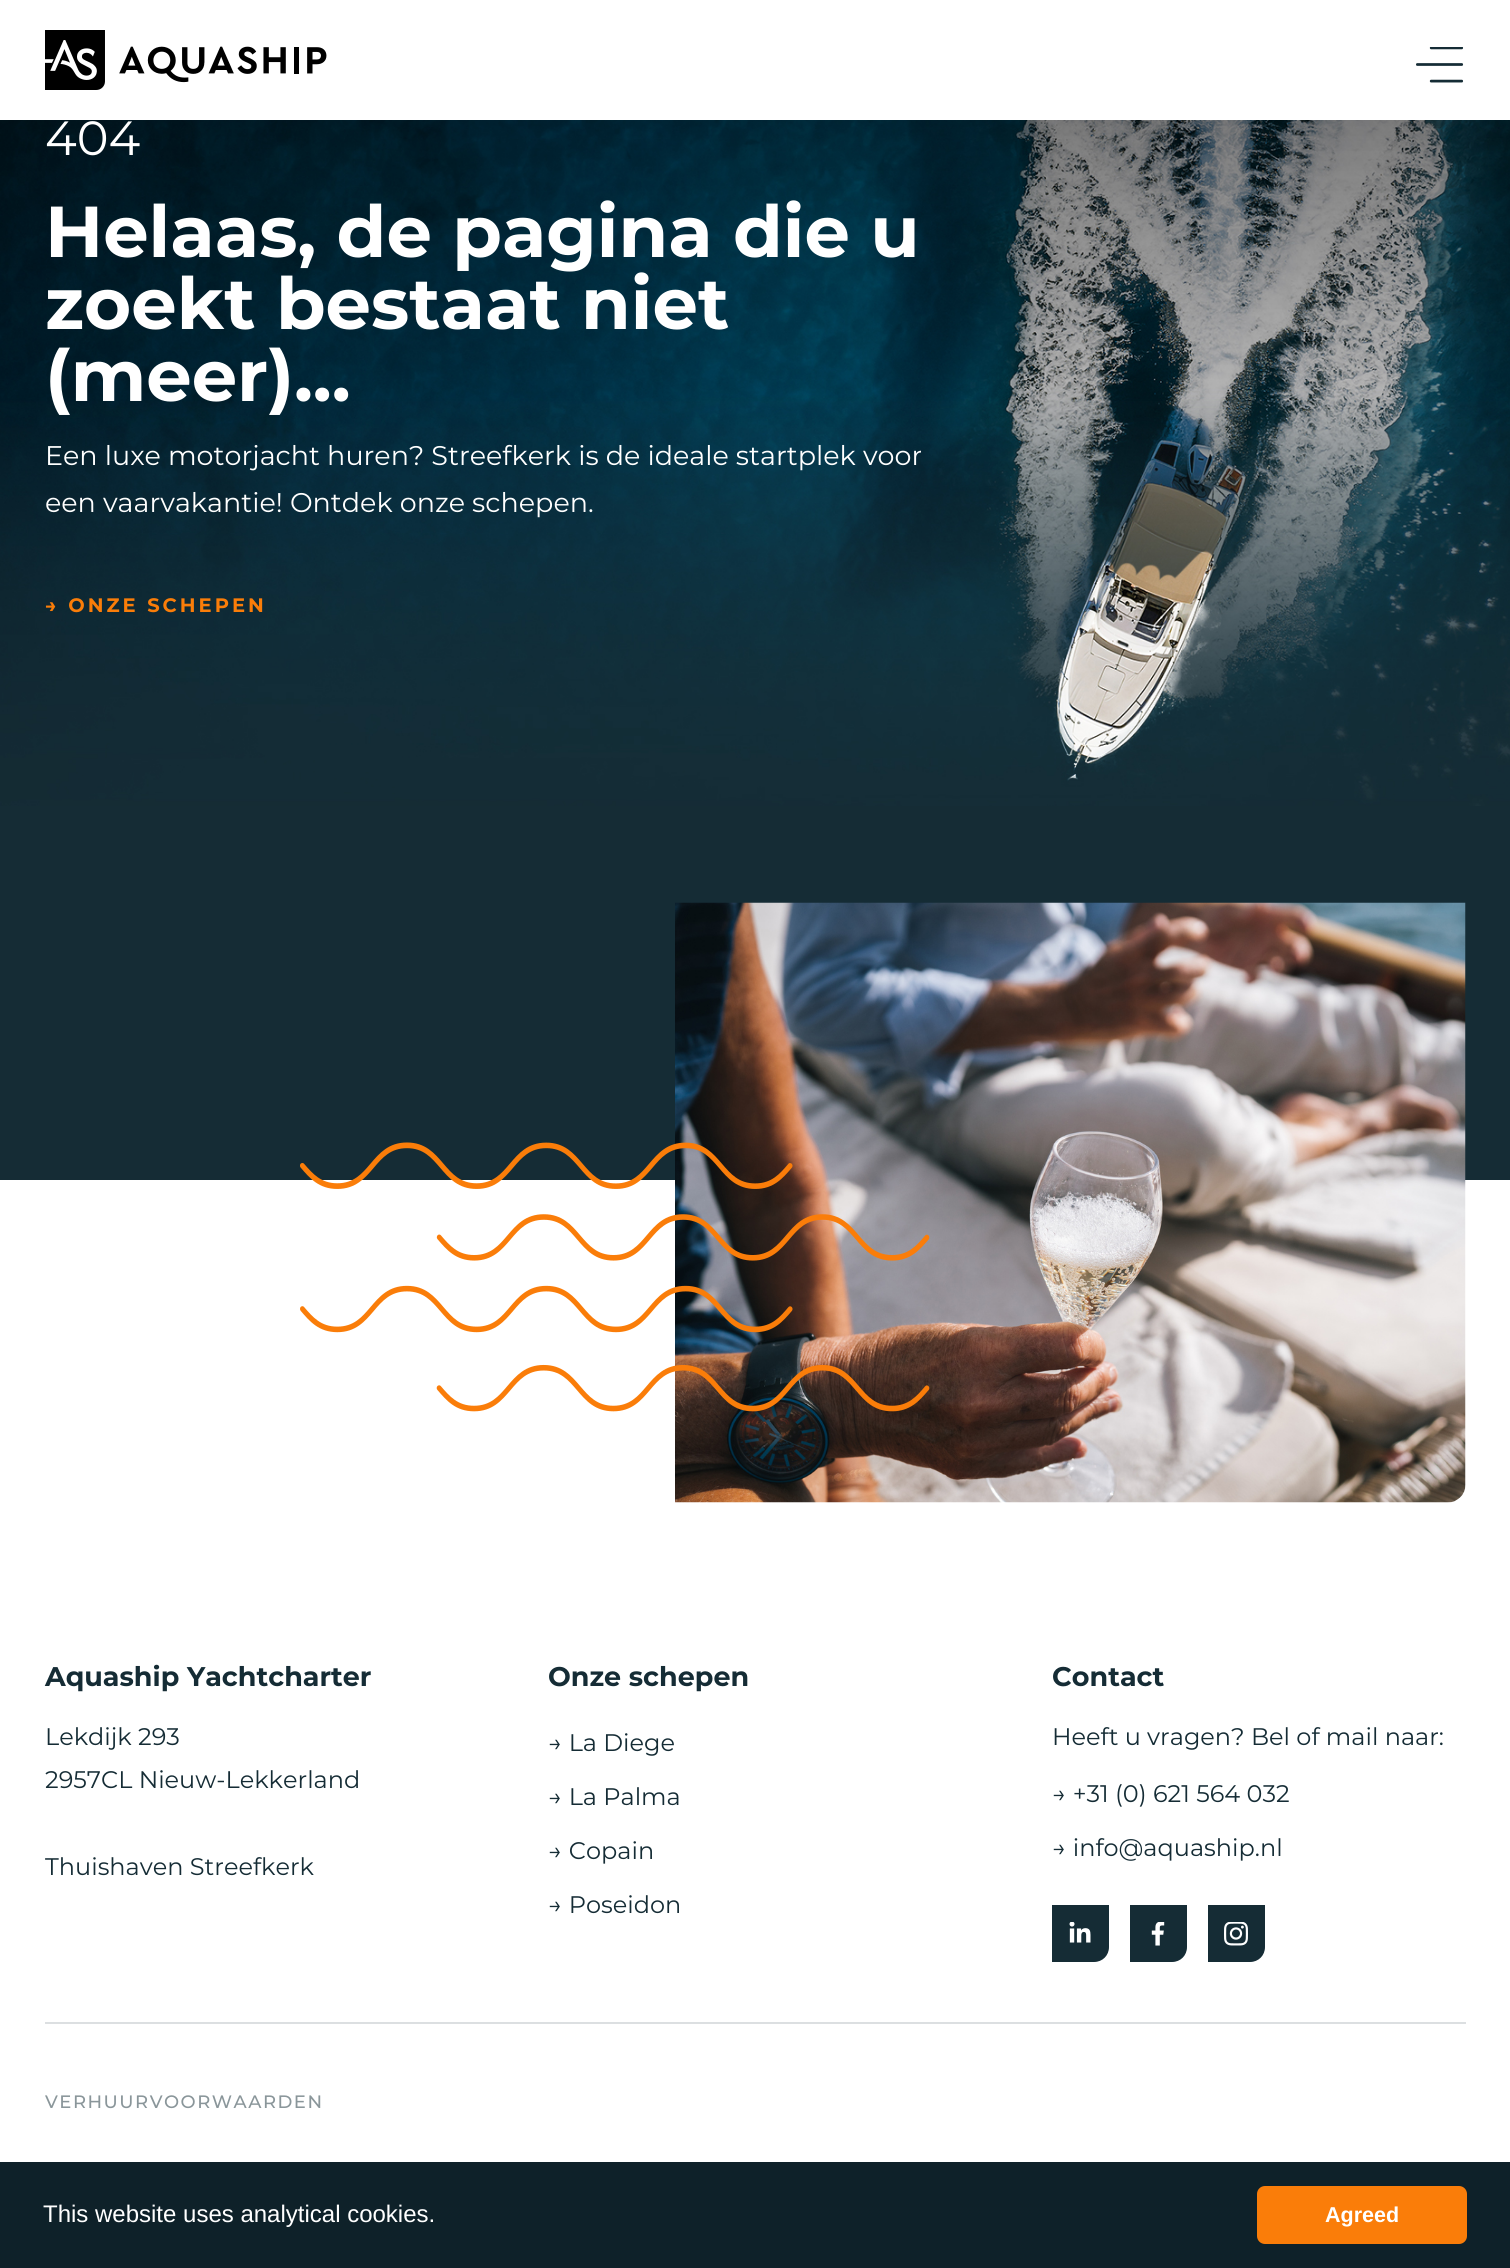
import math
import cairo



def draw_spaced(context, x, y, s, letter, word):
    context.move_to(x, y)
    for ch in s:
        context.show_text(ch)
        context.rel_move_to(letter + word * (ch == ' '), 0)


def rounded_rect(context, x, y, w, h, r):
    context.new_sub_path()
    for i, (u, v) in enumerate([(x + w - r, y + h - r), (x + r, y + h - r), (x + r, y + r), (x + w - r, y + r)]):
        context.arc(u, v, r, i * math.pi / 2, (i + 1) * math.pi / 2)
    context.close_path()


def draw_image(context, path, x, y, w, h):
    context.save()
    context.set_source_surface(cairo.ImageSurface.create_from_png(path), x, y)
    context.rectangle(x, y, w, h)
    context.fill()
    context.restore()


def draw(context):
    context.set_source_rgb(1, 1, 1)
    context.paint()
    draw_image(context, "images/1.png", 45, 30, 282, 60)
    draw_image(context, "images/2.png", 1416, 47, 48, 36)
    draw_image(context, "images/3.png", 0, 120, 1510, 686)
    context.set_source_rgb(21 / 255, 44 / 255, 53 / 255)
    context.rectangle(0, 806, 1510, 374)
    context.fill()
    draw_image(context, "images/5.png", 675, 902, 791, 601)
    draw_image(context, "images/4.png", 300, 1142, 630, 270)
    context.new_path()
    context.move_to(1052, 1905)
    context.line_to(1109, 1905)
    context.line_to(1109, 1947)
    context.curve_to(1109, 1955.5, 1102.5, 1962, 1094, 1962)
    context.line_to(1052, 1962)
    context.close_path()
    context.fill()
    draw_image(context, "images/6.png", 1069, 1922, 22, 21)
    context.new_path()
    context.move_to(1130, 1905)
    context.line_to(1187, 1905)
    context.line_to(1187, 1947)
    context.curve_to(1187, 1955.5, 1180.5, 1962, 1172, 1962)
    context.line_to(1130, 1962)
    context.close_path()
    context.fill()
    draw_image(context, "images/7.png", 1151, 1922, 14, 24)
    context.new_path()
    context.move_to(1208, 1905)
    context.line_to(1265, 1905)
    context.line_to(1265, 1947)
    context.curve_to(1265, 1955.5, 1258.5, 1962, 1250, 1962)
    context.line_to(1208, 1962)
    context.close_path()
    context.fill()
    draw_image(context, "images/8.png", 1224, 1922, 24, 24)
    context.set_source_rgb(220 / 255, 223 / 255, 225 / 255)
    context.rectangle(45, 2022, 1421, 2)
    context.fill()
    context.set_source_rgb(14 / 255, 33 / 255, 41 / 255)
    context.rectangle(0, 2162, 1510, 106)
    context.fill()
    context.set_source_rgb(250 / 255, 125 / 255, 9 / 255)
    rounded_rect(context, 1257, 2186, 210, 58, 8)
    context.fill()
    context.select_font_face("Montserrat")
    context.set_font_size(48)
    context.set_source_rgb(1, 1, 1)
    context.move_to(45, 155)
    context.show_text("404")
    context.select_font_face("Montserrat", cairo.FontSlant.NORMAL, cairo.FontWeight.BOLD)
    context.set_font_size(72)
    context.move_to(45, 257)
    context.show_text("Helaas, de pagina die u")
    context.move_to(45, 329)
    context.show_text("zoekt bestaat niet")
    context.move_to(45, 401)
    context.show_text("(meer)...")
    context.select_font_face("Montserrat")
    context.set_font_size(27)
    context.move_to(45, 465)
    context.show_text("Een luxe motorjacht huren? Streefkerk is de ideale startplek voor")
    context.move_to(45, 512)
    context.show_text("een vaarvakantie! Ontdek onze schepen.")
    context.select_font_face("Montserrat", cairo.FontSlant.NORMAL, cairo.FontWeight.BOLD)
    context.set_font_size(19.5)
    context.set_source_rgb(250 / 255, 125 / 255, 9 / 255)
    draw_spaced(context, 45, 612, "→ ONZE SCHEPEN", 3, 0)
    context.set_font_size(27)
    context.set_source_rgb(21 / 255, 44 / 255, 53 / 255)
    context.move_to(45, 1686)
    context.show_text("Aquaship Yachtcharter")
    context.select_font_face("Montserrat")
    context.set_font_size(24)
    context.move_to(45, 1745)
    context.show_text("Lekdijk 293")
    context.move_to(45, 1788)
    context.show_text("2957CL Nieuw-Lekkerland")
    context.move_to(45, 1875)
    context.show_text("Thuishaven Streefkerk")
    context.select_font_face("Montserrat", cairo.FontSlant.NORMAL, cairo.FontWeight.BOLD)
    context.set_font_size(27)
    context.move_to(548, 1686)
    context.show_text("Onze schepen")
    context.select_font_face("Montserrat")
    context.set_font_size(24)
    context.move_to(548, 1751)
    context.show_text("→ La Diege")
    context.move_to(548, 1805)
    context.show_text("→ La Palma")
    context.move_to(548, 1859)
    context.show_text("→ Copain")
    context.move_to(548, 1913)
    context.show_text("→ Poseidon")
    context.select_font_face("Montserrat", cairo.FontSlant.NORMAL, cairo.FontWeight.BOLD)
    context.set_font_size(27)
    context.move_to(1052, 1686)
    context.show_text("Contact")
    context.select_font_face("Montserrat")
    context.set_font_size(24)
    context.move_to(1052, 1745)
    context.show_text("Heeft u vragen? Bel of mail naar:")
    context.move_to(1052, 1802)
    context.show_text("→ +31 (0) 621 564 032")
    context.move_to(1052, 1856)
    context.show_text("→ info@aquaship.nl")
    context.select_font_face("Montserrat Medium")
    context.set_font_size(18)
    context.set_source_rgb(138 / 255, 150 / 255, 154 / 255)
    draw_spaced(context, 45, 2108, "VERHUURVOORWAARDEN", 1.5, 0)
    context.select_font_face("Liberation Sans")
    context.set_font_size(24)
    context.set_source_rgb(1, 1, 1)
    context.move_to(43, 2222)
    context.show_text("This website uses analytical cookies.")
    context.select_font_face("Liberation Sans", cairo.FontSlant.NORMAL, cairo.FontWeight.BOLD)
    context.set_font_size(21.5)
    context.move_to(1325, 2222)
    context.show_text("Agreed")


surface = cairo.ImageSurface(cairo.Format.RGB24, 1510, 2268)
context = cairo.Context(surface)
options = cairo.FontOptions()
options.set_hint_metrics(cairo.HintMetrics.OFF)
options.set_hint_style(cairo.HintStyle.NONE)
context.set_font_options(options)
context.set_miter_limit(4)
draw(context)
surface.write_to_png("out.png")
